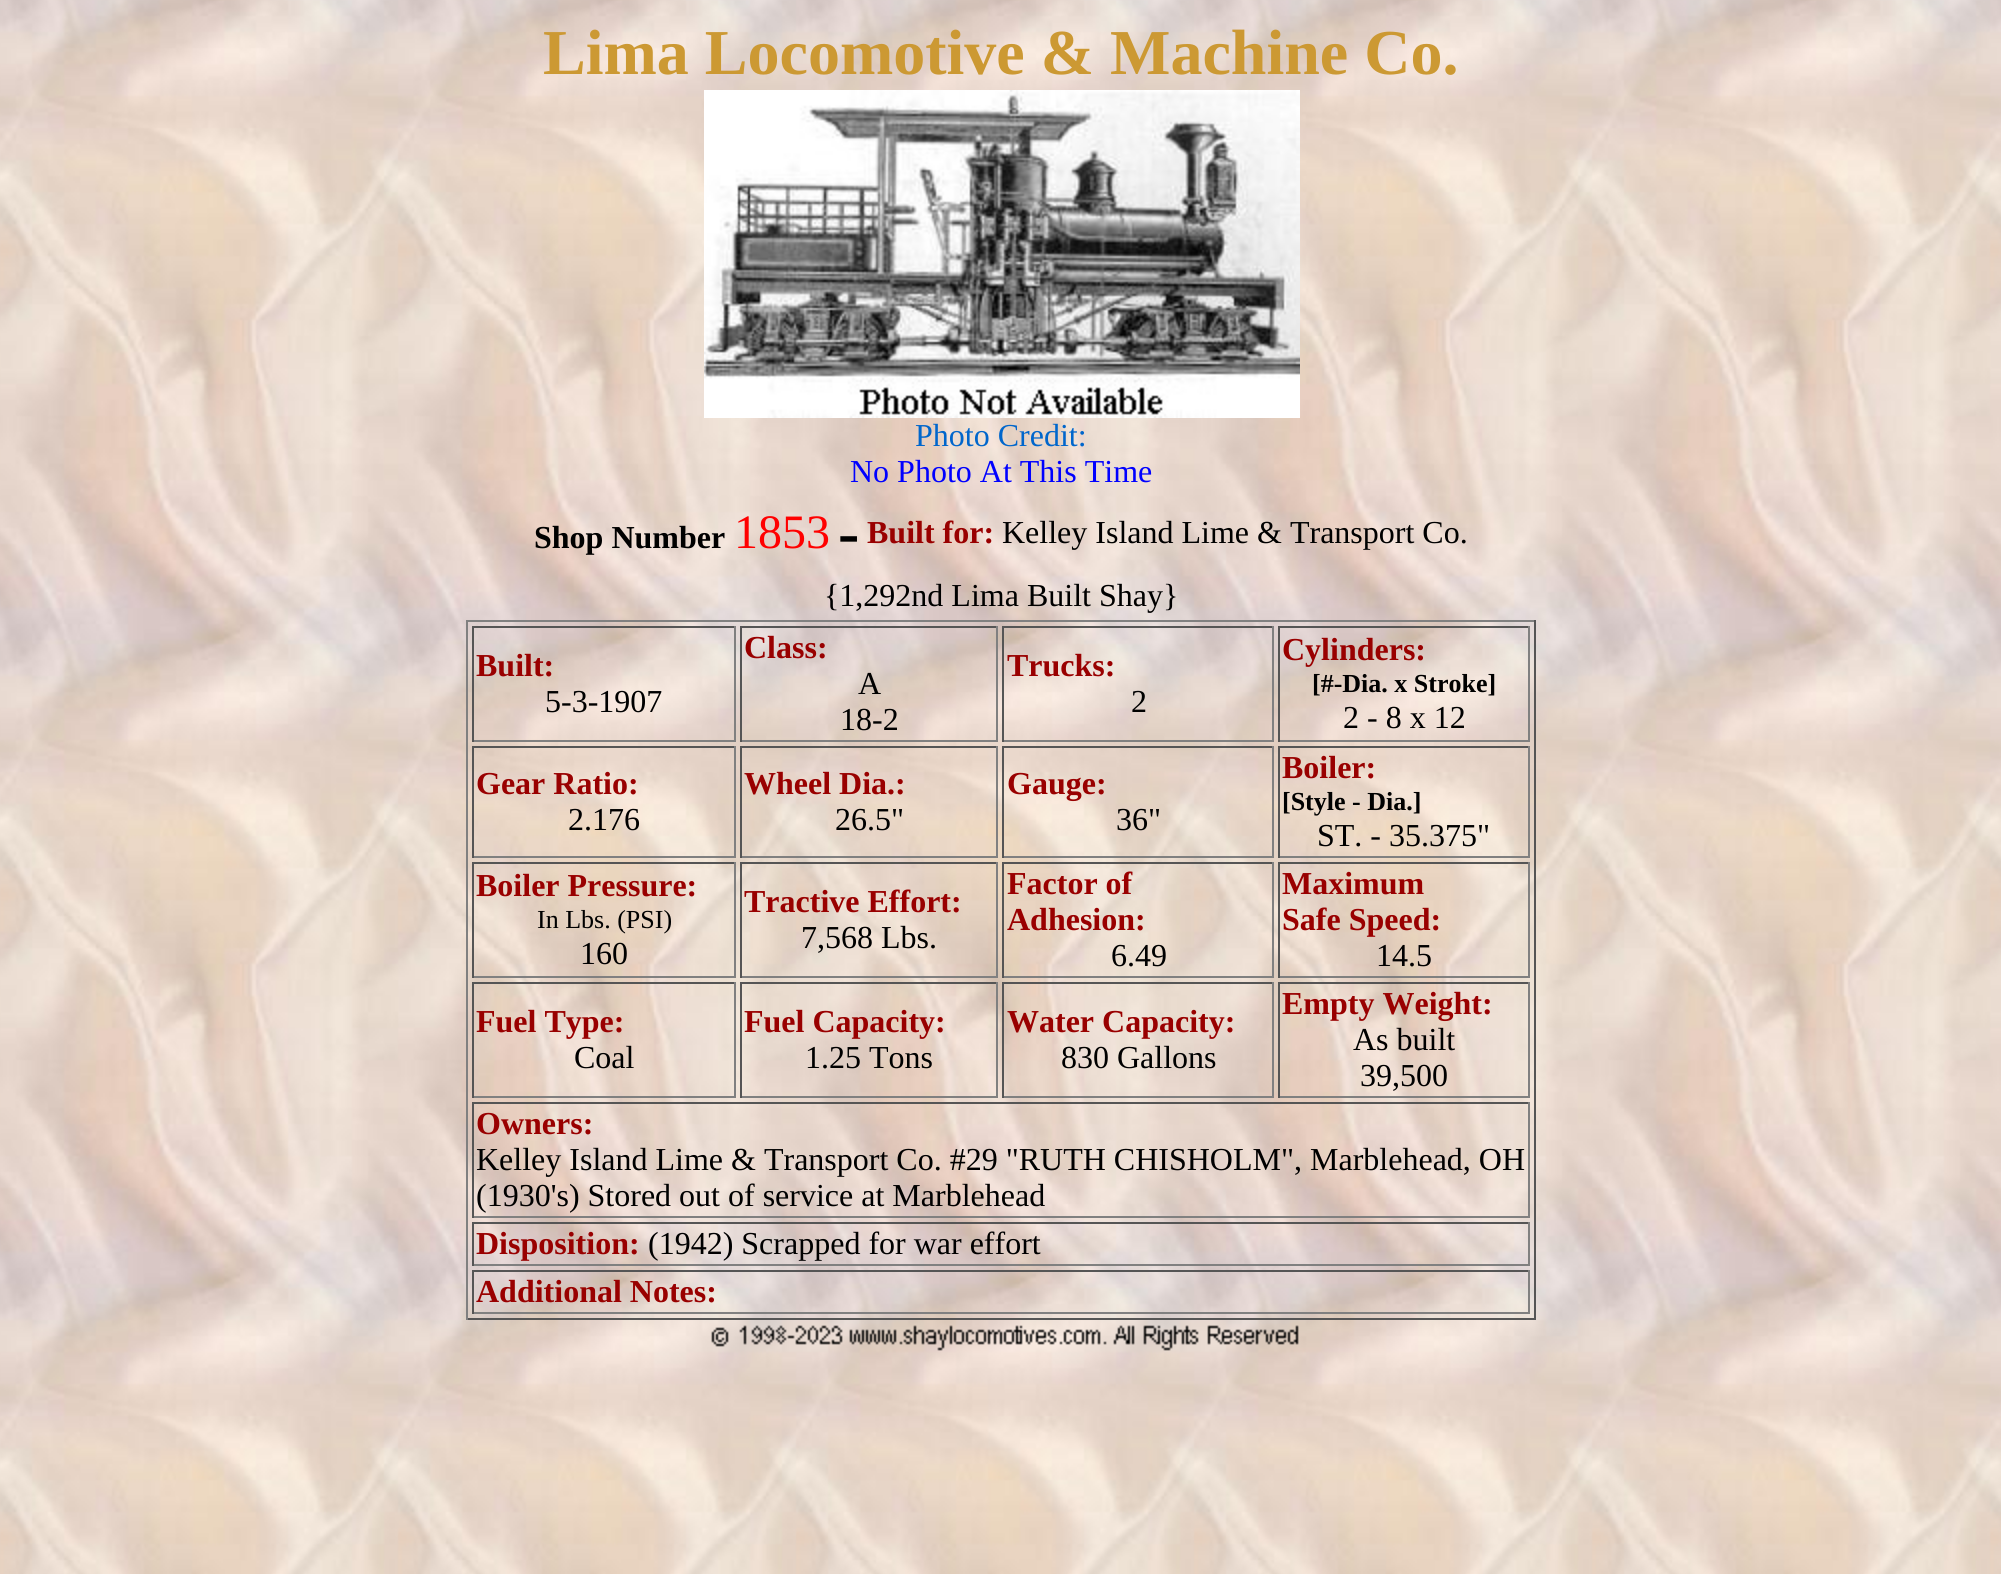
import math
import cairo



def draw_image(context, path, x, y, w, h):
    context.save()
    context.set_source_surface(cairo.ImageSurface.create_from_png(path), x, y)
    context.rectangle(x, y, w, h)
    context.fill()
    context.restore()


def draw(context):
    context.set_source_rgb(1, 1, 1)
    context.paint()
    draw_image(context, "images/1.png", 0, 0, 2001, 1574)
    draw_image(context, "images/2.png", 704, 90, 596, 328)
    context.set_source_rgb(128 / 255, 128 / 255, 128 / 255)
    context.rectangle(466, 620, 1070, 2)
    context.fill()
    context.set_source_rgb(85 / 255, 85 / 255, 85 / 255)
    context.rectangle(1534, 620, 2, 700)
    context.fill()
    context.rectangle(466, 1318, 1070, 2)
    context.fill()
    context.set_source_rgb(128 / 255, 128 / 255, 128 / 255)
    context.rectangle(466, 620, 2, 700)
    context.fill()
    context.set_source_rgb(85 / 255, 85 / 255, 85 / 255)
    context.rectangle(472, 626, 264, 2)
    context.fill()
    context.set_source_rgb(128 / 255, 128 / 255, 128 / 255)
    context.rectangle(734, 626, 2, 116)
    context.fill()
    context.rectangle(472, 740, 264, 2)
    context.fill()
    context.set_source_rgb(85 / 255, 85 / 255, 85 / 255)
    context.rectangle(472, 626, 2, 116)
    context.fill()
    context.rectangle(740, 626, 258, 2)
    context.fill()
    context.set_source_rgb(128 / 255, 128 / 255, 128 / 255)
    context.rectangle(996, 626, 2, 116)
    context.fill()
    context.rectangle(740, 740, 258, 2)
    context.fill()
    context.set_source_rgb(85 / 255, 85 / 255, 85 / 255)
    context.rectangle(740, 626, 2, 116)
    context.fill()
    context.rectangle(1002, 626, 272, 2)
    context.fill()
    context.set_source_rgb(128 / 255, 128 / 255, 128 / 255)
    context.rectangle(1272, 626, 2, 116)
    context.fill()
    context.rectangle(1002, 740, 272, 2)
    context.fill()
    context.set_source_rgb(85 / 255, 85 / 255, 85 / 255)
    context.rectangle(1002, 626, 2, 116)
    context.fill()
    context.rectangle(1278, 626, 252, 2)
    context.fill()
    context.set_source_rgb(128 / 255, 128 / 255, 128 / 255)
    context.rectangle(1528, 626, 2, 116)
    context.fill()
    context.rectangle(1278, 740, 252, 2)
    context.fill()
    context.set_source_rgb(85 / 255, 85 / 255, 85 / 255)
    context.rectangle(1278, 626, 2, 116)
    context.fill()
    context.rectangle(472, 746, 264, 2)
    context.fill()
    context.set_source_rgb(128 / 255, 128 / 255, 128 / 255)
    context.rectangle(734, 746, 2, 112)
    context.fill()
    context.rectangle(472, 856, 264, 2)
    context.fill()
    context.set_source_rgb(85 / 255, 85 / 255, 85 / 255)
    context.rectangle(472, 746, 2, 112)
    context.fill()
    context.rectangle(740, 746, 258, 2)
    context.fill()
    context.set_source_rgb(128 / 255, 128 / 255, 128 / 255)
    context.rectangle(996, 746, 2, 112)
    context.fill()
    context.rectangle(740, 856, 258, 2)
    context.fill()
    context.set_source_rgb(85 / 255, 85 / 255, 85 / 255)
    context.rectangle(740, 746, 2, 112)
    context.fill()
    context.rectangle(1002, 746, 272, 2)
    context.fill()
    context.set_source_rgb(128 / 255, 128 / 255, 128 / 255)
    context.rectangle(1272, 746, 2, 112)
    context.fill()
    context.rectangle(1002, 856, 272, 2)
    context.fill()
    context.set_source_rgb(85 / 255, 85 / 255, 85 / 255)
    context.rectangle(1002, 746, 2, 112)
    context.fill()
    context.rectangle(1278, 746, 252, 2)
    context.fill()
    context.set_source_rgb(128 / 255, 128 / 255, 128 / 255)
    context.rectangle(1528, 746, 2, 112)
    context.fill()
    context.rectangle(1278, 856, 252, 2)
    context.fill()
    context.set_source_rgb(85 / 255, 85 / 255, 85 / 255)
    context.rectangle(1278, 746, 2, 112)
    context.fill()
    context.rectangle(472, 862, 264, 2)
    context.fill()
    context.set_source_rgb(128 / 255, 128 / 255, 128 / 255)
    context.rectangle(734, 862, 2, 116)
    context.fill()
    context.rectangle(472, 976, 264, 2)
    context.fill()
    context.set_source_rgb(85 / 255, 85 / 255, 85 / 255)
    context.rectangle(472, 862, 2, 116)
    context.fill()
    context.rectangle(740, 862, 258, 2)
    context.fill()
    context.set_source_rgb(128 / 255, 128 / 255, 128 / 255)
    context.rectangle(996, 862, 2, 116)
    context.fill()
    context.rectangle(740, 976, 258, 2)
    context.fill()
    context.set_source_rgb(85 / 255, 85 / 255, 85 / 255)
    context.rectangle(740, 862, 2, 116)
    context.fill()
    context.rectangle(1002, 862, 272, 2)
    context.fill()
    context.set_source_rgb(128 / 255, 128 / 255, 128 / 255)
    context.rectangle(1272, 862, 2, 116)
    context.fill()
    context.rectangle(1002, 976, 272, 2)
    context.fill()
    context.set_source_rgb(85 / 255, 85 / 255, 85 / 255)
    context.rectangle(1002, 862, 2, 116)
    context.fill()
    context.rectangle(1278, 862, 252, 2)
    context.fill()
    context.set_source_rgb(128 / 255, 128 / 255, 128 / 255)
    context.rectangle(1528, 862, 2, 116)
    context.fill()
    context.rectangle(1278, 976, 252, 2)
    context.fill()
    context.set_source_rgb(85 / 255, 85 / 255, 85 / 255)
    context.rectangle(1278, 862, 2, 116)
    context.fill()
    context.rectangle(472, 982, 264, 2)
    context.fill()
    context.set_source_rgb(128 / 255, 128 / 255, 128 / 255)
    context.rectangle(734, 982, 2, 116)
    context.fill()
    context.rectangle(472, 1096, 264, 2)
    context.fill()
    context.set_source_rgb(85 / 255, 85 / 255, 85 / 255)
    context.rectangle(472, 982, 2, 116)
    context.fill()
    context.rectangle(740, 982, 258, 2)
    context.fill()
    context.set_source_rgb(128 / 255, 128 / 255, 128 / 255)
    context.rectangle(996, 982, 2, 116)
    context.fill()
    context.rectangle(740, 1096, 258, 2)
    context.fill()
    context.set_source_rgb(85 / 255, 85 / 255, 85 / 255)
    context.rectangle(740, 982, 2, 116)
    context.fill()
    context.rectangle(1002, 982, 272, 2)
    context.fill()
    context.set_source_rgb(128 / 255, 128 / 255, 128 / 255)
    context.rectangle(1272, 982, 2, 116)
    context.fill()
    context.rectangle(1002, 1096, 272, 2)
    context.fill()
    context.set_source_rgb(85 / 255, 85 / 255, 85 / 255)
    context.rectangle(1002, 982, 2, 116)
    context.fill()
    context.rectangle(1278, 982, 252, 2)
    context.fill()
    context.set_source_rgb(128 / 255, 128 / 255, 128 / 255)
    context.rectangle(1528, 982, 2, 116)
    context.fill()
    context.rectangle(1278, 1096, 252, 2)
    context.fill()
    context.set_source_rgb(85 / 255, 85 / 255, 85 / 255)
    context.rectangle(1278, 982, 2, 116)
    context.fill()
    context.rectangle(472, 1102, 1058, 2)
    context.fill()
    context.set_source_rgb(128 / 255, 128 / 255, 128 / 255)
    context.rectangle(1528, 1102, 2, 116)
    context.fill()
    context.rectangle(472, 1216, 1058, 2)
    context.fill()
    context.set_source_rgb(85 / 255, 85 / 255, 85 / 255)
    context.rectangle(472, 1102, 2, 116)
    context.fill()
    context.rectangle(472, 1222, 1058, 2)
    context.fill()
    context.set_source_rgb(128 / 255, 128 / 255, 128 / 255)
    context.rectangle(1528, 1222, 2, 44)
    context.fill()
    context.rectangle(472, 1264, 1058, 2)
    context.fill()
    context.set_source_rgb(85 / 255, 85 / 255, 85 / 255)
    context.rectangle(472, 1222, 2, 44)
    context.fill()
    context.rectangle(472, 1270, 1058, 2)
    context.fill()
    context.set_source_rgb(128 / 255, 128 / 255, 128 / 255)
    context.rectangle(1528, 1270, 2, 44)
    context.fill()
    context.rectangle(472, 1312, 1058, 2)
    context.fill()
    context.set_source_rgb(85 / 255, 85 / 255, 85 / 255)
    context.rectangle(472, 1270, 2, 44)
    context.fill()
    draw_image(context, "images/3.png", 711, 1325, 588, 26)
    context.select_font_face("Liberation Serif", cairo.FontSlant.NORMAL, cairo.FontWeight.BOLD)
    context.set_font_size(64)
    context.set_source_rgb(204 / 255, 153 / 255, 51 / 255)
    context.move_to(543, 74)
    context.show_text("Lima Locomotive & Machine Co.")
    context.select_font_face("Liberation Serif")
    context.set_font_size(32)
    context.set_source_rgb(0, 102 / 255, 204 / 255)
    context.move_to(915, 446)
    context.show_text("Photo Credit:")
    context.set_source_rgb(0, 0, 1)
    context.move_to(850, 482)
    context.show_text("No Photo At This Time")
    context.select_font_face("Liberation Serif", cairo.FontSlant.NORMAL, cairo.FontWeight.BOLD)
    context.set_source_rgb(0, 0, 0)
    context.move_to(534, 548)
    context.show_text("Shop Number")
    context.select_font_face("Liberation Serif")
    context.set_font_size(48)
    context.set_source_rgb(1, 0, 0)
    context.move_to(734, 548)
    context.show_text("1853")
    context.select_font_face("Liberation Serif", cairo.FontSlant.NORMAL, cairo.FontWeight.BOLD)
    context.set_font_size(64)
    context.set_source_rgb(0, 0, 0)
    context.move_to(838, 554)
    context.show_text("-")
    context.set_font_size(32)
    context.set_source_rgb(153 / 255, 0, 0)
    context.move_to(867, 543)
    context.show_text("Built for:")
    context.select_font_face("Liberation Serif")
    context.set_source_rgb(0, 0, 0)
    context.move_to(1002, 543)
    context.show_text("Kelley Island Lime & Transport Co.")
    context.move_to(824, 606)
    context.show_text("{1,292nd Lima Built Shay}")
    context.select_font_face("Liberation Serif", cairo.FontSlant.NORMAL, cairo.FontWeight.BOLD)
    context.set_source_rgb(153 / 255, 0, 0)
    context.move_to(476, 676)
    context.show_text("Built:")
    context.select_font_face("Liberation Serif")
    context.set_source_rgb(0, 0, 0)
    context.move_to(545, 712)
    context.show_text("5-3-1907")
    context.select_font_face("Liberation Serif", cairo.FontSlant.NORMAL, cairo.FontWeight.BOLD)
    context.set_source_rgb(153 / 255, 0, 0)
    context.move_to(744, 658)
    context.show_text("Class:")
    context.select_font_face("Liberation Serif")
    context.set_source_rgb(0, 0, 0)
    context.move_to(858, 694)
    context.show_text("A")
    context.move_to(840, 730)
    context.show_text("18-2")
    context.select_font_face("Liberation Serif", cairo.FontSlant.NORMAL, cairo.FontWeight.BOLD)
    context.set_source_rgb(153 / 255, 0, 0)
    context.move_to(1007, 676)
    context.show_text("Trucks:")
    context.select_font_face("Liberation Serif")
    context.set_source_rgb(0, 0, 0)
    context.move_to(1131, 712)
    context.show_text("2")
    context.select_font_face("Liberation Serif", cairo.FontSlant.NORMAL, cairo.FontWeight.BOLD)
    context.set_source_rgb(153 / 255, 0, 0)
    context.move_to(1282, 660)
    context.show_text("Cylinders:")
    context.set_font_size(26)
    context.set_source_rgb(0, 0, 0)
    context.move_to(1312, 692)
    context.show_text("[#-Dia. x Stroke]")
    context.select_font_face("Liberation Serif")
    context.set_font_size(32)
    context.move_to(1343, 728)
    context.show_text("2 - 8 x 12")
    context.select_font_face("Liberation Serif", cairo.FontSlant.NORMAL, cairo.FontWeight.BOLD)
    context.set_source_rgb(153 / 255, 0, 0)
    context.move_to(476, 794)
    context.show_text("Gear Ratio:")
    context.select_font_face("Liberation Serif")
    context.set_source_rgb(0, 0, 0)
    context.move_to(568, 830)
    context.show_text("2.176")
    context.select_font_face("Liberation Serif", cairo.FontSlant.NORMAL, cairo.FontWeight.BOLD)
    context.set_source_rgb(153 / 255, 0, 0)
    context.move_to(744, 794)
    context.show_text("Wheel Dia.:")
    context.select_font_face("Liberation Serif")
    context.set_source_rgb(0, 0, 0)
    context.move_to(835, 830)
    context.show_text("26.5\"")
    context.select_font_face("Liberation Serif", cairo.FontSlant.NORMAL, cairo.FontWeight.BOLD)
    context.set_source_rgb(153 / 255, 0, 0)
    context.move_to(1007, 794)
    context.show_text("Gauge:")
    context.select_font_face("Liberation Serif")
    context.set_source_rgb(0, 0, 0)
    context.move_to(1116, 830)
    context.show_text("36\"")
    context.select_font_face("Liberation Serif", cairo.FontSlant.NORMAL, cairo.FontWeight.BOLD)
    context.set_source_rgb(153 / 255, 0, 0)
    context.move_to(1282, 778)
    context.show_text("Boiler:")
    context.set_font_size(26)
    context.set_source_rgb(0, 0, 0)
    context.move_to(1282, 810)
    context.show_text("[Style - Dia.]")
    context.select_font_face("Liberation Serif")
    context.set_font_size(32)
    context.move_to(1317, 846)
    context.show_text("ST. - 35.375\"")
    context.select_font_face("Liberation Serif", cairo.FontSlant.NORMAL, cairo.FontWeight.BOLD)
    context.set_source_rgb(153 / 255, 0, 0)
    context.move_to(476, 896)
    context.show_text("Boiler Pressure:")
    context.select_font_face("Liberation Serif")
    context.set_font_size(26)
    context.set_source_rgb(0, 0, 0)
    context.move_to(537, 928)
    context.show_text("In Lbs. (PSI)")
    context.set_font_size(32)
    context.move_to(580, 964)
    context.show_text("160")
    context.select_font_face("Liberation Serif", cairo.FontSlant.NORMAL, cairo.FontWeight.BOLD)
    context.set_source_rgb(153 / 255, 0, 0)
    context.move_to(744, 912)
    context.show_text("Tractive Effort:")
    context.select_font_face("Liberation Serif")
    context.set_source_rgb(0, 0, 0)
    context.move_to(801, 948)
    context.show_text("7,568 Lbs.")
    context.select_font_face("Liberation Serif", cairo.FontSlant.NORMAL, cairo.FontWeight.BOLD)
    context.set_source_rgb(153 / 255, 0, 0)
    context.move_to(1007, 894)
    context.show_text("Factor of")
    context.move_to(1007, 930)
    context.show_text("Adhesion:")
    context.select_font_face("Liberation Serif")
    context.set_source_rgb(0, 0, 0)
    context.move_to(1111, 966)
    context.show_text("6.49")
    context.select_font_face("Liberation Serif", cairo.FontSlant.NORMAL, cairo.FontWeight.BOLD)
    context.set_source_rgb(153 / 255, 0, 0)
    context.move_to(1282, 894)
    context.show_text("Maximum")
    context.move_to(1282, 930)
    context.show_text("Safe Speed:")
    context.select_font_face("Liberation Serif")
    context.set_source_rgb(0, 0, 0)
    context.move_to(1376, 966)
    context.show_text("14.5")
    context.select_font_face("Liberation Serif", cairo.FontSlant.NORMAL, cairo.FontWeight.BOLD)
    context.set_source_rgb(153 / 255, 0, 0)
    context.move_to(476, 1032)
    context.show_text("Fuel Type:")
    context.select_font_face("Liberation Serif")
    context.set_source_rgb(0, 0, 0)
    context.move_to(574, 1068)
    context.show_text("Coal")
    context.select_font_face("Liberation Serif", cairo.FontSlant.NORMAL, cairo.FontWeight.BOLD)
    context.set_source_rgb(153 / 255, 0, 0)
    context.move_to(744, 1032)
    context.show_text("Fuel Capacity:")
    context.select_font_face("Liberation Serif")
    context.set_source_rgb(0, 0, 0)
    context.move_to(805, 1068)
    context.show_text("1.25 Tons")
    context.select_font_face("Liberation Serif", cairo.FontSlant.NORMAL, cairo.FontWeight.BOLD)
    context.set_source_rgb(153 / 255, 0, 0)
    context.move_to(1007, 1032)
    context.show_text("Water Capacity:")
    context.select_font_face("Liberation Serif")
    context.set_source_rgb(0, 0, 0)
    context.move_to(1061, 1068)
    context.show_text("830 Gallons")
    context.select_font_face("Liberation Serif", cairo.FontSlant.NORMAL, cairo.FontWeight.BOLD)
    context.set_source_rgb(153 / 255, 0, 0)
    context.move_to(1282, 1014)
    context.show_text("Empty Weight:")
    context.select_font_face("Liberation Serif")
    context.set_source_rgb(0, 0, 0)
    context.move_to(1353, 1050)
    context.show_text("As built")
    context.move_to(1360, 1086)
    context.show_text("39,500")
    context.select_font_face("Liberation Serif", cairo.FontSlant.NORMAL, cairo.FontWeight.BOLD)
    context.set_source_rgb(153 / 255, 0, 0)
    context.move_to(476, 1134)
    context.show_text("Owners:")
    context.select_font_face("Liberation Serif")
    context.set_source_rgb(0, 0, 0)
    context.move_to(476, 1170)
    context.show_text("Kelley Island Lime & Transport Co. #29 \"RUTH CHISHOLM\", Marblehead, OH")
    context.move_to(476, 1206)
    context.show_text("(1930's) Stored out of service at Marblehead")
    context.select_font_face("Liberation Serif", cairo.FontSlant.NORMAL, cairo.FontWeight.BOLD)
    context.set_source_rgb(153 / 255, 0, 0)
    context.move_to(476, 1254)
    context.show_text("Disposition:")
    context.select_font_face("Liberation Serif")
    context.set_source_rgb(0, 0, 0)
    context.move_to(648, 1254)
    context.show_text("(1942) Scrapped for war effort")
    context.select_font_face("Liberation Serif", cairo.FontSlant.NORMAL, cairo.FontWeight.BOLD)
    context.set_source_rgb(153 / 255, 0, 0)
    context.move_to(476, 1302)
    context.show_text("Additional Notes:")


surface = cairo.ImageSurface(cairo.Format.RGB24, 2001, 1574)
context = cairo.Context(surface)
options = cairo.FontOptions()
options.set_hint_metrics(cairo.HintMetrics.OFF)
options.set_hint_style(cairo.HintStyle.NONE)
context.set_font_options(options)
context.set_miter_limit(4)
draw(context)
surface.write_to_png("out.png")
